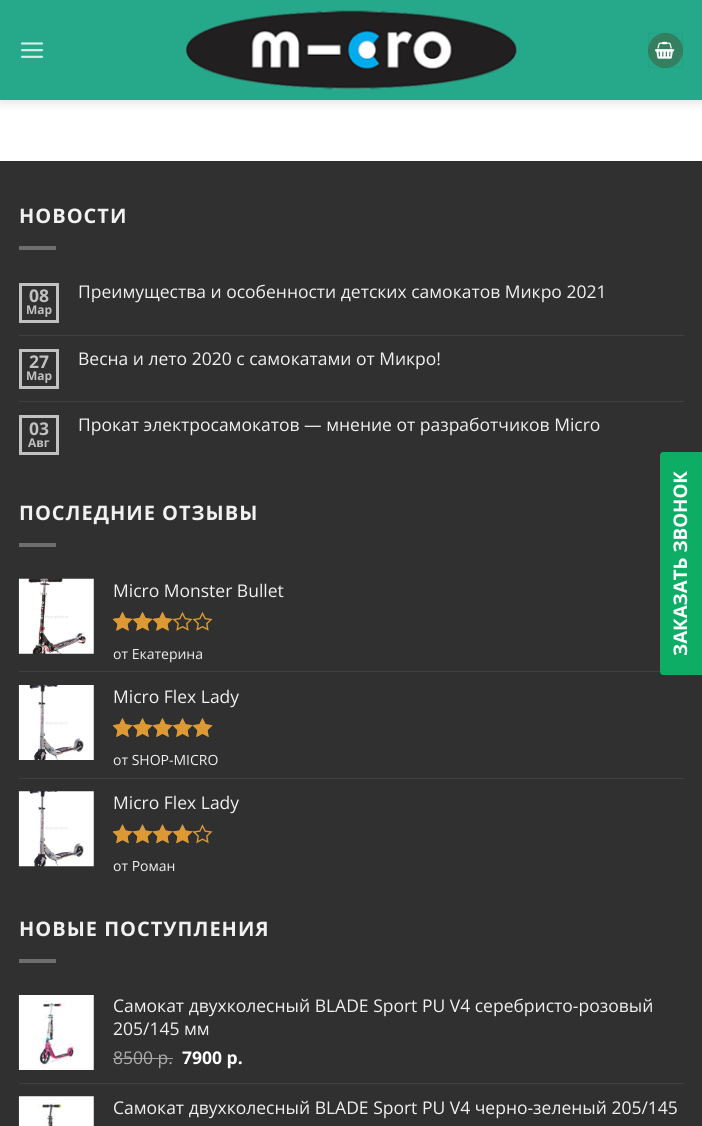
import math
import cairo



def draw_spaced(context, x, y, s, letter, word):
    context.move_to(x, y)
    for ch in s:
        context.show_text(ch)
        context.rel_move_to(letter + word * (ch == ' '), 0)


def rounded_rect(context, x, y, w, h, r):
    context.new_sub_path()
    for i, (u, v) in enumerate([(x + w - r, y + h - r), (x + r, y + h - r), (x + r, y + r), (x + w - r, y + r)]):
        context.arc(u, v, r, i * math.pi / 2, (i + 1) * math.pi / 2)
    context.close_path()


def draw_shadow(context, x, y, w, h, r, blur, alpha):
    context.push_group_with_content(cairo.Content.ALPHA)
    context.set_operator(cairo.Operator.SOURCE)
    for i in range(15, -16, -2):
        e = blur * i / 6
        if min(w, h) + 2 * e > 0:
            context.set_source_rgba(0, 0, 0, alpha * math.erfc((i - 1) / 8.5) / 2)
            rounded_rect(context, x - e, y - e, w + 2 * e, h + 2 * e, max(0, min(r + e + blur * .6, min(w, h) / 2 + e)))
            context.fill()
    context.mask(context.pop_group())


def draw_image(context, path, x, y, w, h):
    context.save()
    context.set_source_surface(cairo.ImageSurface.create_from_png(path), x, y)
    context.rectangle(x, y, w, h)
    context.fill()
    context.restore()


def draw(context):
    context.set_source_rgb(1, 1, 1)
    context.paint()
    context.set_source_rgb(0, 0, 0)
    draw_shadow(context, 1, 1, 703, 100, 0, 6, 0.15)
    context.set_source_rgb(38 / 255, 168 / 255, 138 / 255)
    context.rectangle(0, 0, 702, 100)
    context.fill()
    draw_image(context, "images/1.png", 21, 42, 23, 16)
    draw_image(context, "images/2.png", 185, 10, 333, 80)
    context.set_source_rgb(52 / 255, 127 / 255, 96 / 255)
    context.arc(665.5, 50.5, 17.5, 0, 2 * math.pi)
    context.fill()
    context.rectangle(648.5, 33.5, 34, 34)
    context.set_source_rgba(0, 0, 0, 0.05)
    context.set_line_width(1)
    context.stroke()
    draw_image(context, "images/3.png", 655, 41, 20, 18)
    context.set_source_rgb(48 / 255, 48 / 255, 48 / 255)
    context.rectangle(0, 162, 702, 964)
    context.fill()
    context.set_source_rgb(46 / 255, 46 / 255, 46 / 255)
    context.rectangle(0, 161, 702, 1)
    context.fill()
    context.set_source_rgb(110 / 255, 110 / 255, 110 / 255)
    context.rectangle(19, 246, 37, 4)
    context.fill()
    context.rectangle(20.5, 284.5, 37, 37)
    context.set_source_rgb(193 / 255, 193 / 255, 193 / 255)
    context.set_line_width(3)
    context.stroke()
    context.set_source_rgb(65 / 255, 65 / 255, 65 / 255)
    context.rectangle(19, 335, 665, 1)
    context.fill()
    context.rectangle(20.5, 350.5, 37, 37)
    context.set_source_rgb(193 / 255, 193 / 255, 193 / 255)
    context.stroke()
    context.set_source_rgb(65 / 255, 65 / 255, 65 / 255)
    context.rectangle(19, 401, 665, 1)
    context.fill()
    context.rectangle(20.5, 416.5, 37, 37)
    context.set_source_rgb(193 / 255, 193 / 255, 193 / 255)
    context.stroke()
    context.set_source_rgb(110 / 255, 110 / 255, 110 / 255)
    context.rectangle(19, 543, 37, 4)
    context.fill()
    draw_image(context, "images/4.png", 18, 578, 76, 76)
    draw_image(context, "images/5.png", 113, 611, 100, 20)
    draw_image(context, "images/6.png", 113, 611, 61, 20)
    context.set_source_rgb(65 / 255, 65 / 255, 65 / 255)
    context.rectangle(19, 671, 642, 1)
    context.fill()
    draw_image(context, "images/7.png", 18, 685, 76, 75)
    draw_image(context, "images/8.png", 113, 718, 100, 19)
    draw_image(context, "images/9.png", 113, 718, 100, 19)
    context.rectangle(19, 778, 665, 1)
    context.fill()
    draw_image(context, "images/10.png", 18, 791, 76, 76)
    draw_image(context, "images/11.png", 113, 824, 100, 20)
    draw_image(context, "images/12.png", 113, 824, 81, 20)
    context.set_source_rgb(110 / 255, 110 / 255, 110 / 255)
    context.rectangle(19, 959, 37, 4)
    context.fill()
    draw_image(context, "images/13.png", 18, 995, 76, 75)
    context.set_source_rgb(65 / 255, 65 / 255, 65 / 255)
    context.rectangle(19, 1083, 665, 1)
    context.fill()
    draw_image(context, "images/14.png", 18, 1096, 76, 30)
    context.set_source_rgb(14 / 255, 173 / 255, 102 / 255)
    context.new_path()
    context.move_to(660, 671)
    context.line_to(660, 456)
    context.curve_to(660, 454, 661, 452, 663, 452)
    context.line_to(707, 452)
    context.line_to(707, 675)
    context.line_to(663, 675)
    context.curve_to(661, 675, 660, 673, 660, 671)
    context.close_path()
    context.fill()
    context.select_font_face("Open Sans", cairo.FontSlant.NORMAL, cairo.FontWeight.BOLD)
    context.set_font_size(20)
    context.set_source_rgb(241 / 255, 241 / 255, 241 / 255)
    draw_spaced(context, 19, 223, "НОВОСТИ", 1, 0)
    context.set_font_size(17.5)
    context.set_source_rgb(193 / 255, 193 / 255, 193 / 255)
    context.move_to(29, 302)
    context.show_text("08")
    context.set_font_size(12)
    context.move_to(26, 314)
    context.show_text("Мар")
    context.select_font_face("Open Sans")
    context.set_font_size(17.5)
    context.set_source_rgb(241 / 255, 241 / 255, 241 / 255)
    context.move_to(78, 298)
    context.show_text("Преимущества и особенности детских самокатов Микро 2021")
    context.select_font_face("Open Sans", cairo.FontSlant.NORMAL, cairo.FontWeight.BOLD)
    context.set_source_rgb(193 / 255, 193 / 255, 193 / 255)
    context.move_to(29, 368)
    context.show_text("27")
    context.set_font_size(12)
    context.move_to(26, 380)
    context.show_text("Мар")
    context.select_font_face("Open Sans")
    context.set_font_size(17.5)
    context.set_source_rgb(241 / 255, 241 / 255, 241 / 255)
    context.move_to(78, 365)
    context.show_text("Весна и лето 2020 с самокатами от Микро!")
    context.select_font_face("Open Sans", cairo.FontSlant.NORMAL, cairo.FontWeight.BOLD)
    context.set_source_rgb(193 / 255, 193 / 255, 193 / 255)
    context.move_to(29, 435)
    context.show_text("03")
    context.set_font_size(12)
    context.move_to(28, 447)
    context.show_text("Авг")
    context.select_font_face("Open Sans")
    context.set_font_size(17.5)
    context.set_source_rgb(241 / 255, 241 / 255, 241 / 255)
    context.move_to(78, 431)
    context.show_text("Прокат электросамокатов — мнение от разработчиков Micro")
    context.select_font_face("Open Sans", cairo.FontSlant.NORMAL, cairo.FontWeight.BOLD)
    context.set_font_size(20)
    draw_spaced(context, 19, 520, "ПОСЛЕДНИЕ ОТЗЫВЫ", 1, 0)
    context.select_font_face("Open Sans")
    context.set_font_size(17.5)
    context.move_to(113, 597)
    context.show_text("Micro Monster Bullet")
    context.set_font_size(14)
    context.move_to(113, 659)
    context.show_text("от Екатерина")
    context.set_font_size(17.5)
    context.move_to(113, 703)
    context.show_text("Micro Flex Lady")
    context.set_font_size(14)
    context.move_to(113, 765)
    context.show_text("от SHOP-MICRO")
    context.set_font_size(17.5)
    context.move_to(113, 809)
    context.show_text("Micro Flex Lady")
    context.set_font_size(14)
    context.move_to(113, 871)
    context.show_text("от Роман")
    context.select_font_face("Open Sans", cairo.FontSlant.NORMAL, cairo.FontWeight.BOLD)
    context.set_font_size(20)
    draw_spaced(context, 19, 936, "НОВЫЕ ПОСТУПЛЕНИЯ", 1, 0)
    context.select_font_face("Open Sans")
    context.set_font_size(17.5)
    context.move_to(113, 1012)
    context.show_text("Самокат двухколесный BLADE Sport PU V4 серебристо-розовый")
    context.move_to(113, 1035)
    context.show_text("205/145 мм")
    context.set_source_rgb(172 / 255, 172 / 255, 172 / 255)
    context.move_to(113, 1064)
    context.show_text("8500 р.")
    context.set_source_rgb(164 / 255, 164 / 255, 164 / 255)
    context.rectangle(113, 1058, 60, 1)
    context.fill()
    context.select_font_face("Open Sans", cairo.FontSlant.NORMAL, cairo.FontWeight.BOLD)
    context.set_source_rgb(1, 1, 1)
    context.move_to(182, 1064)
    context.show_text("7900 р.")
    context.select_font_face("Open Sans")
    context.set_source_rgb(241 / 255, 241 / 255, 241 / 255)
    context.move_to(113, 1114)
    context.show_text("Самокат двухколесный BLADE Sport PU V4 черно-зеленый 205/145")
    context.select_font_face("Open Sans", cairo.FontSlant.NORMAL, cairo.FontWeight.BOLD)
    context.set_font_size(18.75)
    context.set_source_rgb(1, 1, 1)
    context.save()
    context.translate(687, 656)
    context.rotate(-90 * math.pi / 180)
    context.move_to(0, 0)
    context.show_text("ЗАКАЗАТЬ ЗВОНОК")
    context.restore()


surface = cairo.ImageSurface(cairo.Format.RGB24, 702, 1126)
context = cairo.Context(surface)
options = cairo.FontOptions()
options.set_hint_metrics(cairo.HintMetrics.OFF)
options.set_hint_style(cairo.HintStyle.NONE)
context.set_font_options(options)
context.set_miter_limit(4)
draw(context)
surface.write_to_png("out.png")
